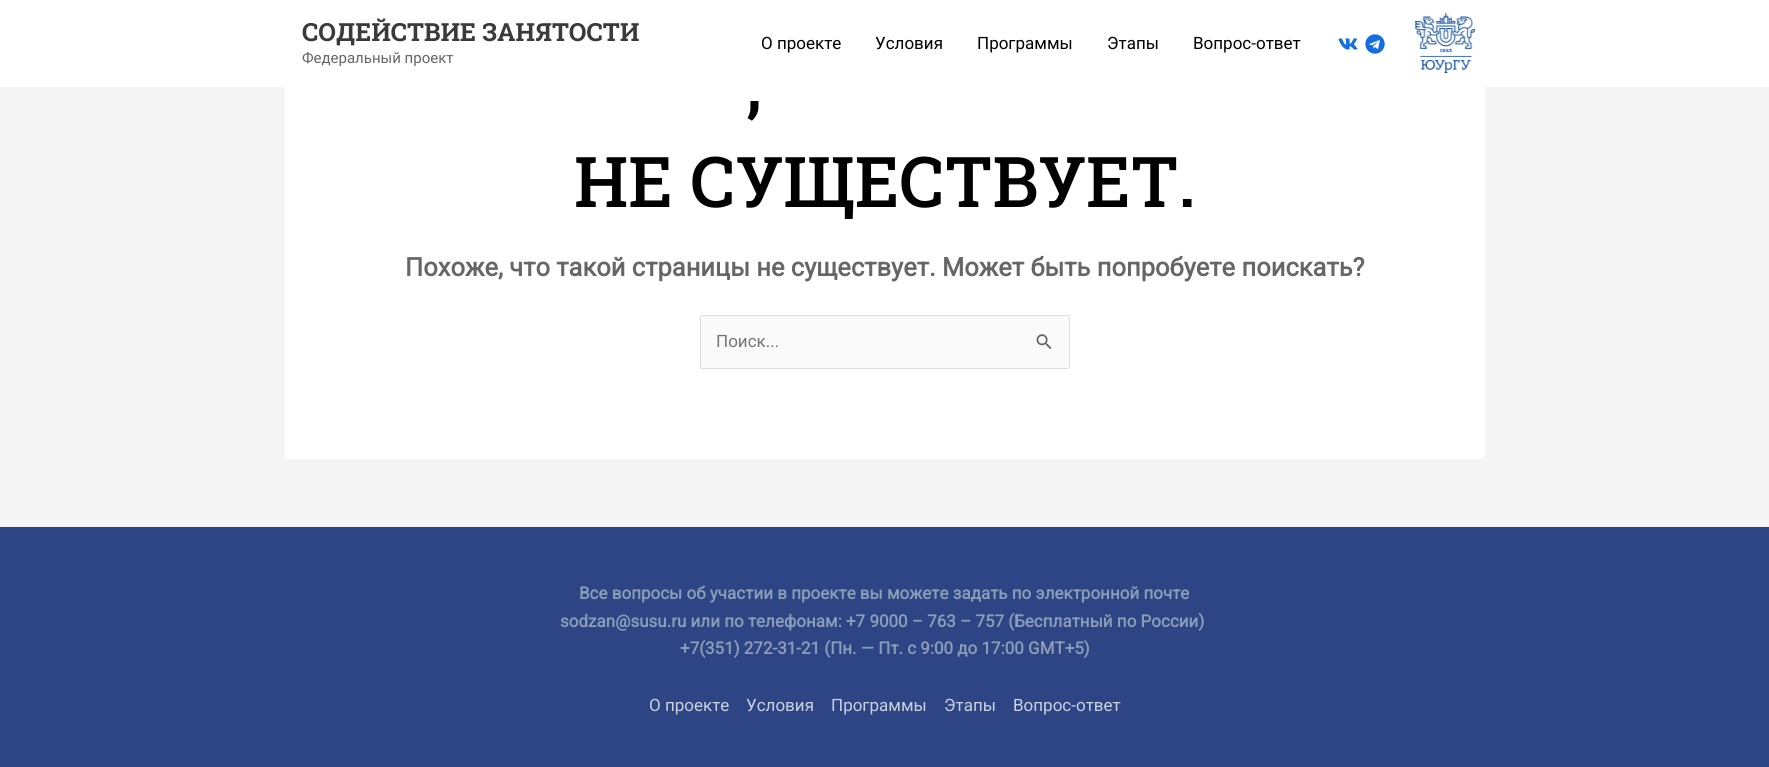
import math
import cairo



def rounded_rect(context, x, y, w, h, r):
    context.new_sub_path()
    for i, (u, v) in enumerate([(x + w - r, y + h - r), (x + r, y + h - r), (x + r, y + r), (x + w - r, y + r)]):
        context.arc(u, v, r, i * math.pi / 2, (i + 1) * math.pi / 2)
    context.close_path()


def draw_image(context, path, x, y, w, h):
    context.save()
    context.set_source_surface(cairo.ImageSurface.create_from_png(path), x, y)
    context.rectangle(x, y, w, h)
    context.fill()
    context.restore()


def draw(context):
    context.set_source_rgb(245 / 255, 245 / 255, 245 / 255)
    context.paint()
    context.set_source_rgb(1, 1, 1)
    context.rectangle(0, 0, 1769, 87)
    context.fill()
    draw_image(context, "images/1.png", 1338, 38, 20, 12)
    draw_image(context, "images/2.png", 1365, 34, 20, 20)
    draw_image(context, "images/3.png", 1414, 13, 61, 60)
    context.rectangle(285, 87, 1200, 372)
    context.fill()
    context.set_source_rgb(250 / 255, 250 / 255, 250 / 255)
    rounded_rect(context, 700.5, 315.5, 369, 53, 1.5)
    context.fill_preserve()
    context.set_source_rgb(221 / 255, 221 / 255, 221 / 255)
    context.set_line_width(1)
    context.stroke()
    draw_image(context, "images/4.png", 1036, 334, 16, 15)
    context.set_source_rgb(45 / 255, 69 / 255, 133 / 255)
    context.rectangle(0, 527, 1769, 240)
    context.fill()
    context.select_font_face("Roboto Slab", cairo.FontSlant.NORMAL, cairo.FontWeight.BOLD)
    context.set_font_size(25)
    context.set_source_rgb(58 / 255, 58 / 255, 58 / 255)
    context.move_to(302, 41)
    context.show_text("СОДЕЙСТВИЕ ЗАНЯТОСТИ")
    context.select_font_face("Roboto")
    context.set_font_size(15)
    context.set_source_rgb(102 / 255, 102 / 255, 102 / 255)
    context.move_to(302, 63)
    context.show_text("Федеральный проект")
    context.set_font_size(17)
    context.set_source_rgb(0, 0, 0)
    context.move_to(761, 49)
    context.show_text("О проекте")
    context.move_to(875, 49)
    context.show_text("Условия")
    context.move_to(977, 49)
    context.show_text("Программы")
    context.move_to(1107, 49)
    context.show_text("Этапы")
    context.move_to(1193, 49)
    context.show_text("Вопрос-ответ")
    context.select_font_face("Roboto Slab Medium")
    context.set_font_size(70)
    context.move_to(746, 109)
    context.show_text(",")
    context.move_to(574, 207)
    context.show_text("НЕ СУЩЕСТВУЕТ.")
    context.select_font_face("Roboto", cairo.FontSlant.NORMAL, cairo.FontWeight.BOLD)
    context.set_font_size(25.5)
    context.set_source_rgb(102 / 255, 102 / 255, 102 / 255)
    context.move_to(405, 276)
    context.show_text("Похоже, что такой страницы не существует. Может быть попробуете поискать?")
    context.select_font_face("Roboto")
    context.set_font_size(17)
    context.set_source_rgb(117 / 255, 117 / 255, 117 / 255)
    context.move_to(716, 347)
    context.show_text("Поиск...")
    context.select_font_face("Roboto", cairo.FontSlant.NORMAL, cairo.FontWeight.BOLD)
    context.set_source_rgb(138 / 255, 156 / 255, 182 / 255)
    context.move_to(579, 599)
    context.show_text("Все вопросы об участии в проекте вы можете задать по электронной почте")
    context.move_to(560, 627)
    context.show_text("sodzan@susu.ru или по телефонам: +7 9000 – 763 – 757 (Бесплатный по России)")
    context.move_to(680, 654)
    context.show_text("+7(351) 272-31-21 (Пн. — Пт. с 9:00 до 17:00 GMT+5)")
    context.select_font_face("Roboto")
    context.set_source_rgb(203 / 255, 209 / 255, 225 / 255)
    context.move_to(649, 711)
    context.show_text("О проекте")
    context.move_to(746, 711)
    context.show_text("Условия")
    context.move_to(831, 711)
    context.show_text("Программы")
    context.move_to(944, 711)
    context.show_text("Этапы")
    context.move_to(1013, 711)
    context.show_text("Вопрос-ответ")


surface = cairo.ImageSurface(cairo.Format.RGB24, 1769, 767)
context = cairo.Context(surface)
options = cairo.FontOptions()
options.set_hint_metrics(cairo.HintMetrics.OFF)
options.set_hint_style(cairo.HintStyle.NONE)
context.set_font_options(options)
context.set_miter_limit(4)
draw(context)
surface.write_to_png("out.png")
